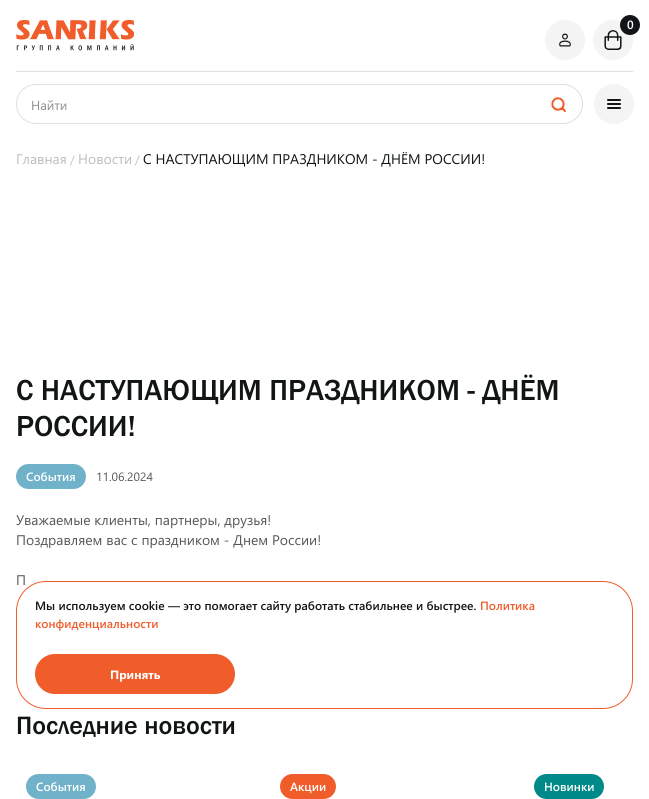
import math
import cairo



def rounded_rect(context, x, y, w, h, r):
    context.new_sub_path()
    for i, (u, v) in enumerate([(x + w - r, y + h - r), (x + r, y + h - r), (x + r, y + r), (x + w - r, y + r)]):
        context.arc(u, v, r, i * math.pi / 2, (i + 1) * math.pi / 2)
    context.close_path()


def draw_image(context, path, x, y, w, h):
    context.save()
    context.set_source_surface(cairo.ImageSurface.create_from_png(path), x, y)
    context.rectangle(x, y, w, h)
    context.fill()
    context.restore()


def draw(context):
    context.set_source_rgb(1, 1, 1)
    context.paint()
    draw_image(context, "images/1.png", 16, 20, 118, 31)
    context.set_source_rgb(244 / 255, 244 / 255, 244 / 255)
    context.arc(565, 40, 20, 0, 2 * math.pi)
    context.fill()
    draw_image(context, "images/2.png", 559, 33, 12, 14)
    context.arc(613, 40, 20, 0, 2 * math.pi)
    context.fill()
    draw_image(context, "images/3.png", 604, 30, 18, 20)
    context.set_source_rgb(17 / 255, 21 / 255, 22 / 255)
    context.arc(630, 25, 10, 0, 2 * math.pi)
    context.fill()
    context.set_source_rgb(224 / 255, 224 / 255, 224 / 255)
    context.rectangle(16, 71, 617, 1)
    context.fill()
    context.set_source_rgb(244 / 255, 244 / 255, 244 / 255)
    context.arc(614, 104, 20, 0, 2 * math.pi)
    context.fill()
    context.set_source_rgb(17 / 255, 21 / 255, 22 / 255)
    rounded_rect(context, 607, 103, 14, 2, 1)
    context.fill()
    rounded_rect(context, 607, 99, 14, 2, 1)
    context.fill()
    rounded_rect(context, 607, 107, 14, 2, 1)
    context.fill()
    rounded_rect(context, 16.5, 84.5, 566, 39, 19.5)
    context.set_source_rgb(224 / 255, 224 / 255, 224 / 255)
    context.set_line_width(1)
    context.stroke()
    draw_image(context, "images/4.png", 551, 97, 15, 15)
    context.set_source_rgb(112 / 255, 178 / 255, 202 / 255)
    rounded_rect(context, 16, 464, 70, 25, 12.5)
    context.fill()
    rounded_rect(context, 26, 774, 70, 25, 12.5)
    context.fill()
    context.set_source_rgb(240 / 255, 93 / 255, 43 / 255)
    rounded_rect(context, 280, 774, 56, 25, 12.5)
    context.fill()
    context.set_source_rgb(0, 137 / 255, 137 / 255)
    rounded_rect(context, 534, 774, 70, 25, 12.5)
    context.fill()
    context.select_font_face("Segoe UI SemiBold")
    context.set_font_size(12)
    context.set_source_rgb(1, 1, 1)
    context.move_to(627, 29)
    context.show_text("0")
    context.select_font_face("Segoe UI")
    context.set_font_size(13)
    context.set_source_rgb(140 / 255, 143 / 255, 144 / 255)
    context.move_to(31, 110)
    context.show_text("Найти")
    context.set_font_size(14)
    context.set_source_rgb(189 / 255, 189 / 255, 189 / 255)
    context.move_to(16, 164)
    context.show_text("Главная")
    context.set_font_size(12)
    context.move_to(70, 164)
    context.show_text("/")
    context.set_font_size(14)
    context.move_to(78, 164)
    context.show_text("Новости")
    context.set_font_size(12)
    context.move_to(135, 164)
    context.show_text("/")
    context.set_font_size(14)
    context.set_source_rgb(17 / 255, 21 / 255, 22 / 255)
    context.move_to(143, 164)
    context.show_text("С НАСТУПАЮЩИМ ПРАЗДНИКОМ - ДНЁМ РОССИИ!")
    context.select_font_face("Franklin Gothic Medium")
    context.set_font_size(30)
    context.move_to(16, 400)
    context.show_text("С НАСТУПАЮЩИМ ПРАЗДНИКОМ - ДНЁМ")
    context.move_to(16, 436)
    context.show_text("РОССИИ!")
    context.select_font_face("Segoe UI SemiBold")
    context.set_font_size(12)
    context.set_source_rgb(1, 1, 1)
    context.move_to(26, 481)
    context.show_text("События")
    context.select_font_face("Segoe UI")
    context.set_source_rgb(85 / 255, 88 / 255, 89 / 255)
    context.move_to(96, 481)
    context.show_text("11.06.2024")
    context.set_font_size(14)
    context.move_to(16, 525)
    context.show_text("Уважаемые клиенты, партнеры, друзья!")
    context.move_to(16, 545)
    context.show_text("Поздравляем вас с праздником - Днем России!")
    context.move_to(16, 585)
    context.show_text("П")
    rounded_rect(context, 16.5, 581.5, 616, 127, 29.5)
    context.set_source_rgb(240 / 255, 93 / 255, 43 / 255)
    context.stroke()
    context.select_font_face("Segoe UI SemiBold")
    context.set_font_size(12)
    context.set_source_rgb(17 / 255, 21 / 255, 22 / 255)
    context.move_to(35, 610)
    context.show_text("Мы используем cookie — это помогает сайту работать стабильнее и быстрее.")
    context.set_source_rgb(240 / 255, 93 / 255, 43 / 255)
    context.move_to(480, 610)
    context.show_text("Политика")
    context.move_to(35, 628)
    context.show_text("конфиденциальности")
    rounded_rect(context, 35, 654, 200, 40, 20)
    context.fill()
    context.select_font_face("Segoe UI", cairo.FontSlant.NORMAL, cairo.FontWeight.BOLD)
    context.set_source_rgb(1, 1, 1)
    context.move_to(110, 679)
    context.show_text("Принять")
    context.select_font_face("Franklin Gothic Medium")
    context.set_font_size(26)
    context.set_source_rgb(17 / 255, 21 / 255, 22 / 255)
    context.move_to(16, 734)
    context.show_text("Последние новости")
    context.select_font_face("Segoe UI SemiBold")
    context.set_font_size(12)
    context.set_source_rgb(1, 1, 1)
    context.move_to(36, 791)
    context.show_text("События")
    context.move_to(290, 791)
    context.show_text("Акции")
    context.move_to(544, 791)
    context.show_text("Новинки")


surface = cairo.ImageSurface(cairo.Format.RGB24, 649, 799)
context = cairo.Context(surface)
options = cairo.FontOptions()
options.set_hint_metrics(cairo.HintMetrics.OFF)
options.set_hint_style(cairo.HintStyle.NONE)
context.set_font_options(options)
context.set_miter_limit(4)
draw(context)
surface.write_to_png("out.png")
